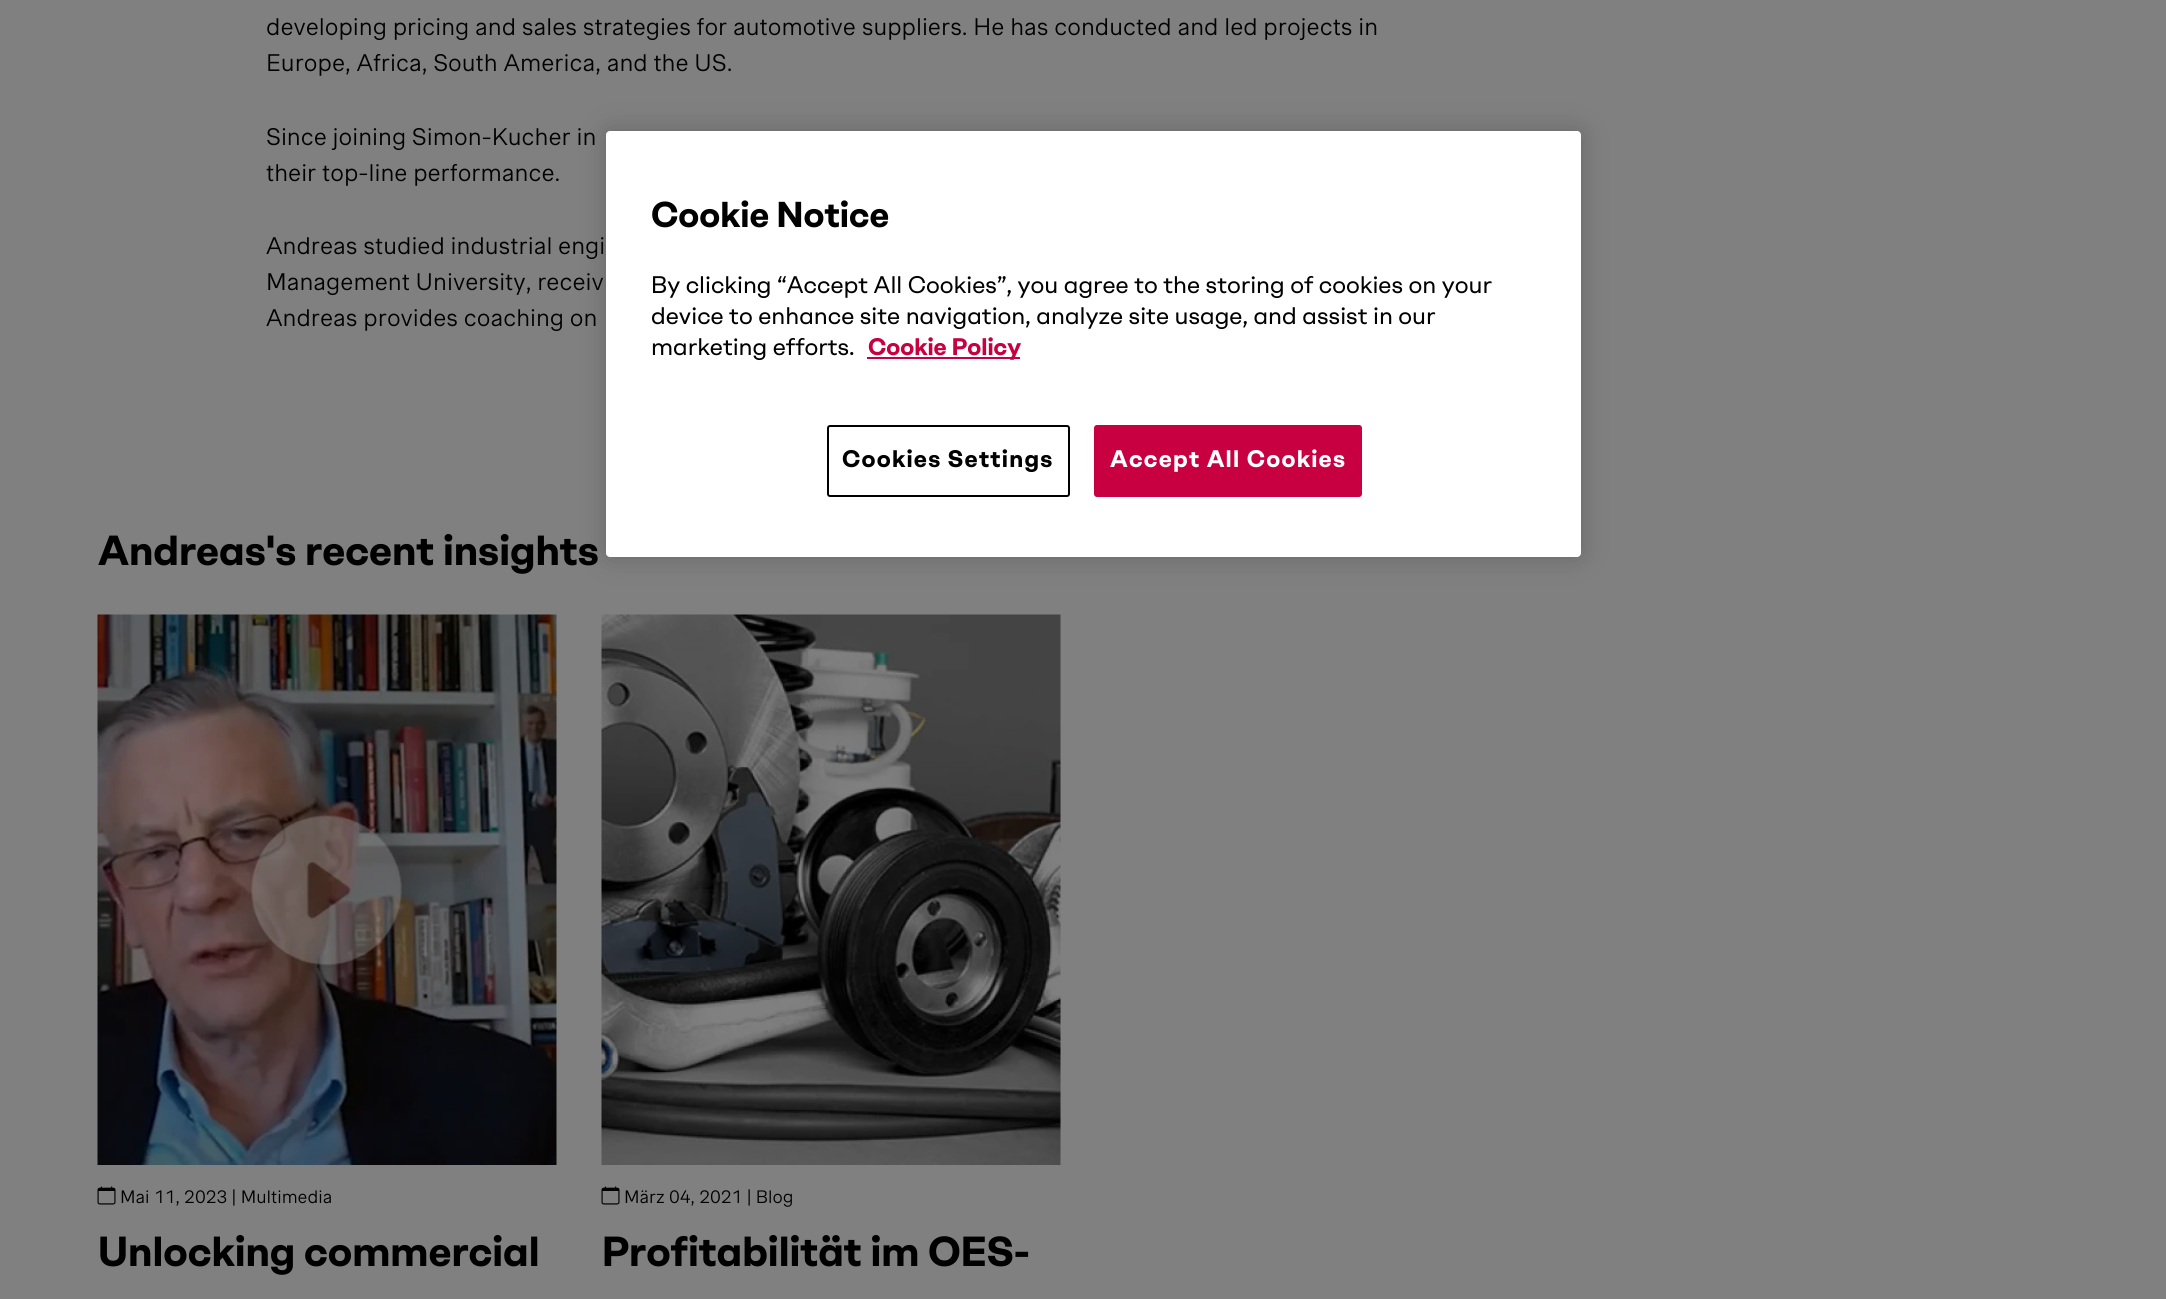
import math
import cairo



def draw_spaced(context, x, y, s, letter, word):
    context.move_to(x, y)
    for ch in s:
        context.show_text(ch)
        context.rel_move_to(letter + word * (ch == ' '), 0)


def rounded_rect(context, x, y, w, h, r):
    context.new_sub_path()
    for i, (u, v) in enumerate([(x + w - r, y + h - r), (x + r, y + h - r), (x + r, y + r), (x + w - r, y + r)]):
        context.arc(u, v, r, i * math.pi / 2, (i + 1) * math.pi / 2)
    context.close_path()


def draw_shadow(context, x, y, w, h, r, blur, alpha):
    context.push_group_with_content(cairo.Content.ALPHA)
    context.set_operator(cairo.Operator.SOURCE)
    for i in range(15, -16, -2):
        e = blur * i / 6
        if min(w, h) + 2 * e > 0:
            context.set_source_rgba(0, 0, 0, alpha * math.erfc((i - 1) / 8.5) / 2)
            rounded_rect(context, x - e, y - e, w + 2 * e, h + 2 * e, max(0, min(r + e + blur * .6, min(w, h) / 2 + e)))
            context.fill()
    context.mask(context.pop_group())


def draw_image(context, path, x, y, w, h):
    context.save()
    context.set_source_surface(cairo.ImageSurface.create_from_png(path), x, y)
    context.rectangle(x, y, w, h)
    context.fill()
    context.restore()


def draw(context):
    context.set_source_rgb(128 / 255, 128 / 255, 128 / 255)
    context.paint()
    draw_image(context, "images/1.png", 97, 614, 460, 551)
    draw_image(context, "images/2.png", 97, 1186, 19, 19)
    draw_image(context, "images/3.png", 601, 614, 460, 551)
    draw_image(context, "images/2.png", 601, 1186, 19, 19)
    context.set_source_rgb(0, 0, 0)
    draw_shadow(context, 606, 131, 975, 426, 4, 13.5, 0.2)
    context.set_source_rgb(1, 1, 1)
    rounded_rect(context, 606, 131, 975, 426, 4)
    context.fill()
    context.set_source_rgb(200 / 255, 0, 65 / 255)
    context.rectangle(867, 357, 153, 2)
    context.fill()
    rounded_rect(context, 828, 426, 241, 70, 2)
    context.set_source_rgb(0, 0, 0)
    context.stroke()
    context.set_source_rgb(200 / 255, 0, 65 / 255)
    rounded_rect(context, 1095, 426, 266, 70, 2)
    context.fill_preserve()
    context.stroke()
    context.select_font_face("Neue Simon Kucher")
    context.set_font_size(24)
    context.set_source_rgb(0, 0, 0)
    context.move_to(266, 35)
    context.show_text("developing pricing and sales strategies for automotive suppliers. He has conducted and led projects in")
    context.move_to(266, 71)
    context.show_text("Europe, Africa, South America, and the US.")
    context.move_to(266, 145)
    context.show_text("Since joining Simon-Kucher in")
    context.move_to(266, 181)
    context.show_text("their top-line performance.")
    context.move_to(266, 254)
    context.show_text("Andreas studied industrial engi")
    context.move_to(266, 290)
    context.show_text("Management University, receiv")
    context.move_to(266, 326)
    context.show_text("Andreas provides coaching on")
    context.select_font_face("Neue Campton", cairo.FontSlant.NORMAL, cairo.FontWeight.BOLD)
    context.set_font_size(42)
    context.move_to(98, 565)
    context.show_text("Andreas's recent insights")
    context.select_font_face("Neue Simon Kucher")
    context.set_font_size(18)
    context.move_to(120, 1203)
    context.show_text("Mai 11, 2023 | Multimedia")
    context.select_font_face("Neue Campton", cairo.FontSlant.NORMAL, cairo.FontWeight.BOLD)
    context.set_font_size(42)
    context.move_to(98, 1266)
    context.show_text("Unlocking commercial")
    context.select_font_face("Neue Simon Kucher")
    context.set_font_size(18)
    context.move_to(624, 1203)
    context.show_text("März 04, 2021 | Blog")
    context.select_font_face("Neue Campton", cairo.FontSlant.NORMAL, cairo.FontWeight.BOLD)
    context.set_font_size(42)
    context.move_to(602, 1266)
    context.show_text("Profitabilität im OES-")
    context.set_font_size(36)
    context.move_to(651, 227)
    context.show_text("Cookie Notice")
    context.select_font_face("Neue Campton")
    context.set_font_size(24)
    context.move_to(651, 293)
    context.show_text("By clicking “Accept All Cookies”, you agree to the storing of cookies on your")
    context.move_to(651, 324)
    context.show_text("device to enhance site navigation, analyze site usage, and assist in our")
    context.move_to(651, 355)
    context.show_text("marketing efforts.")
    context.select_font_face("Neue Campton", cairo.FontSlant.NORMAL, cairo.FontWeight.BOLD)
    context.set_source_rgb(200 / 255, 0, 65 / 255)
    context.move_to(868, 355)
    context.show_text("Cookie Policy")
    context.set_source_rgb(0, 0, 0)
    draw_spaced(context, 842, 467, "Cookies Settings", 1.25, 0)
    context.set_source_rgb(1, 1, 1)
    draw_spaced(context, 1110, 467, "Accept All Cookies", 1.25, 0)


surface = cairo.ImageSurface(cairo.Format.RGB24, 2166, 1299)
context = cairo.Context(surface)
options = cairo.FontOptions()
options.set_hint_metrics(cairo.HintMetrics.OFF)
options.set_hint_style(cairo.HintStyle.NONE)
context.set_font_options(options)
context.set_miter_limit(4)
draw(context)
surface.write_to_png("out.png")
